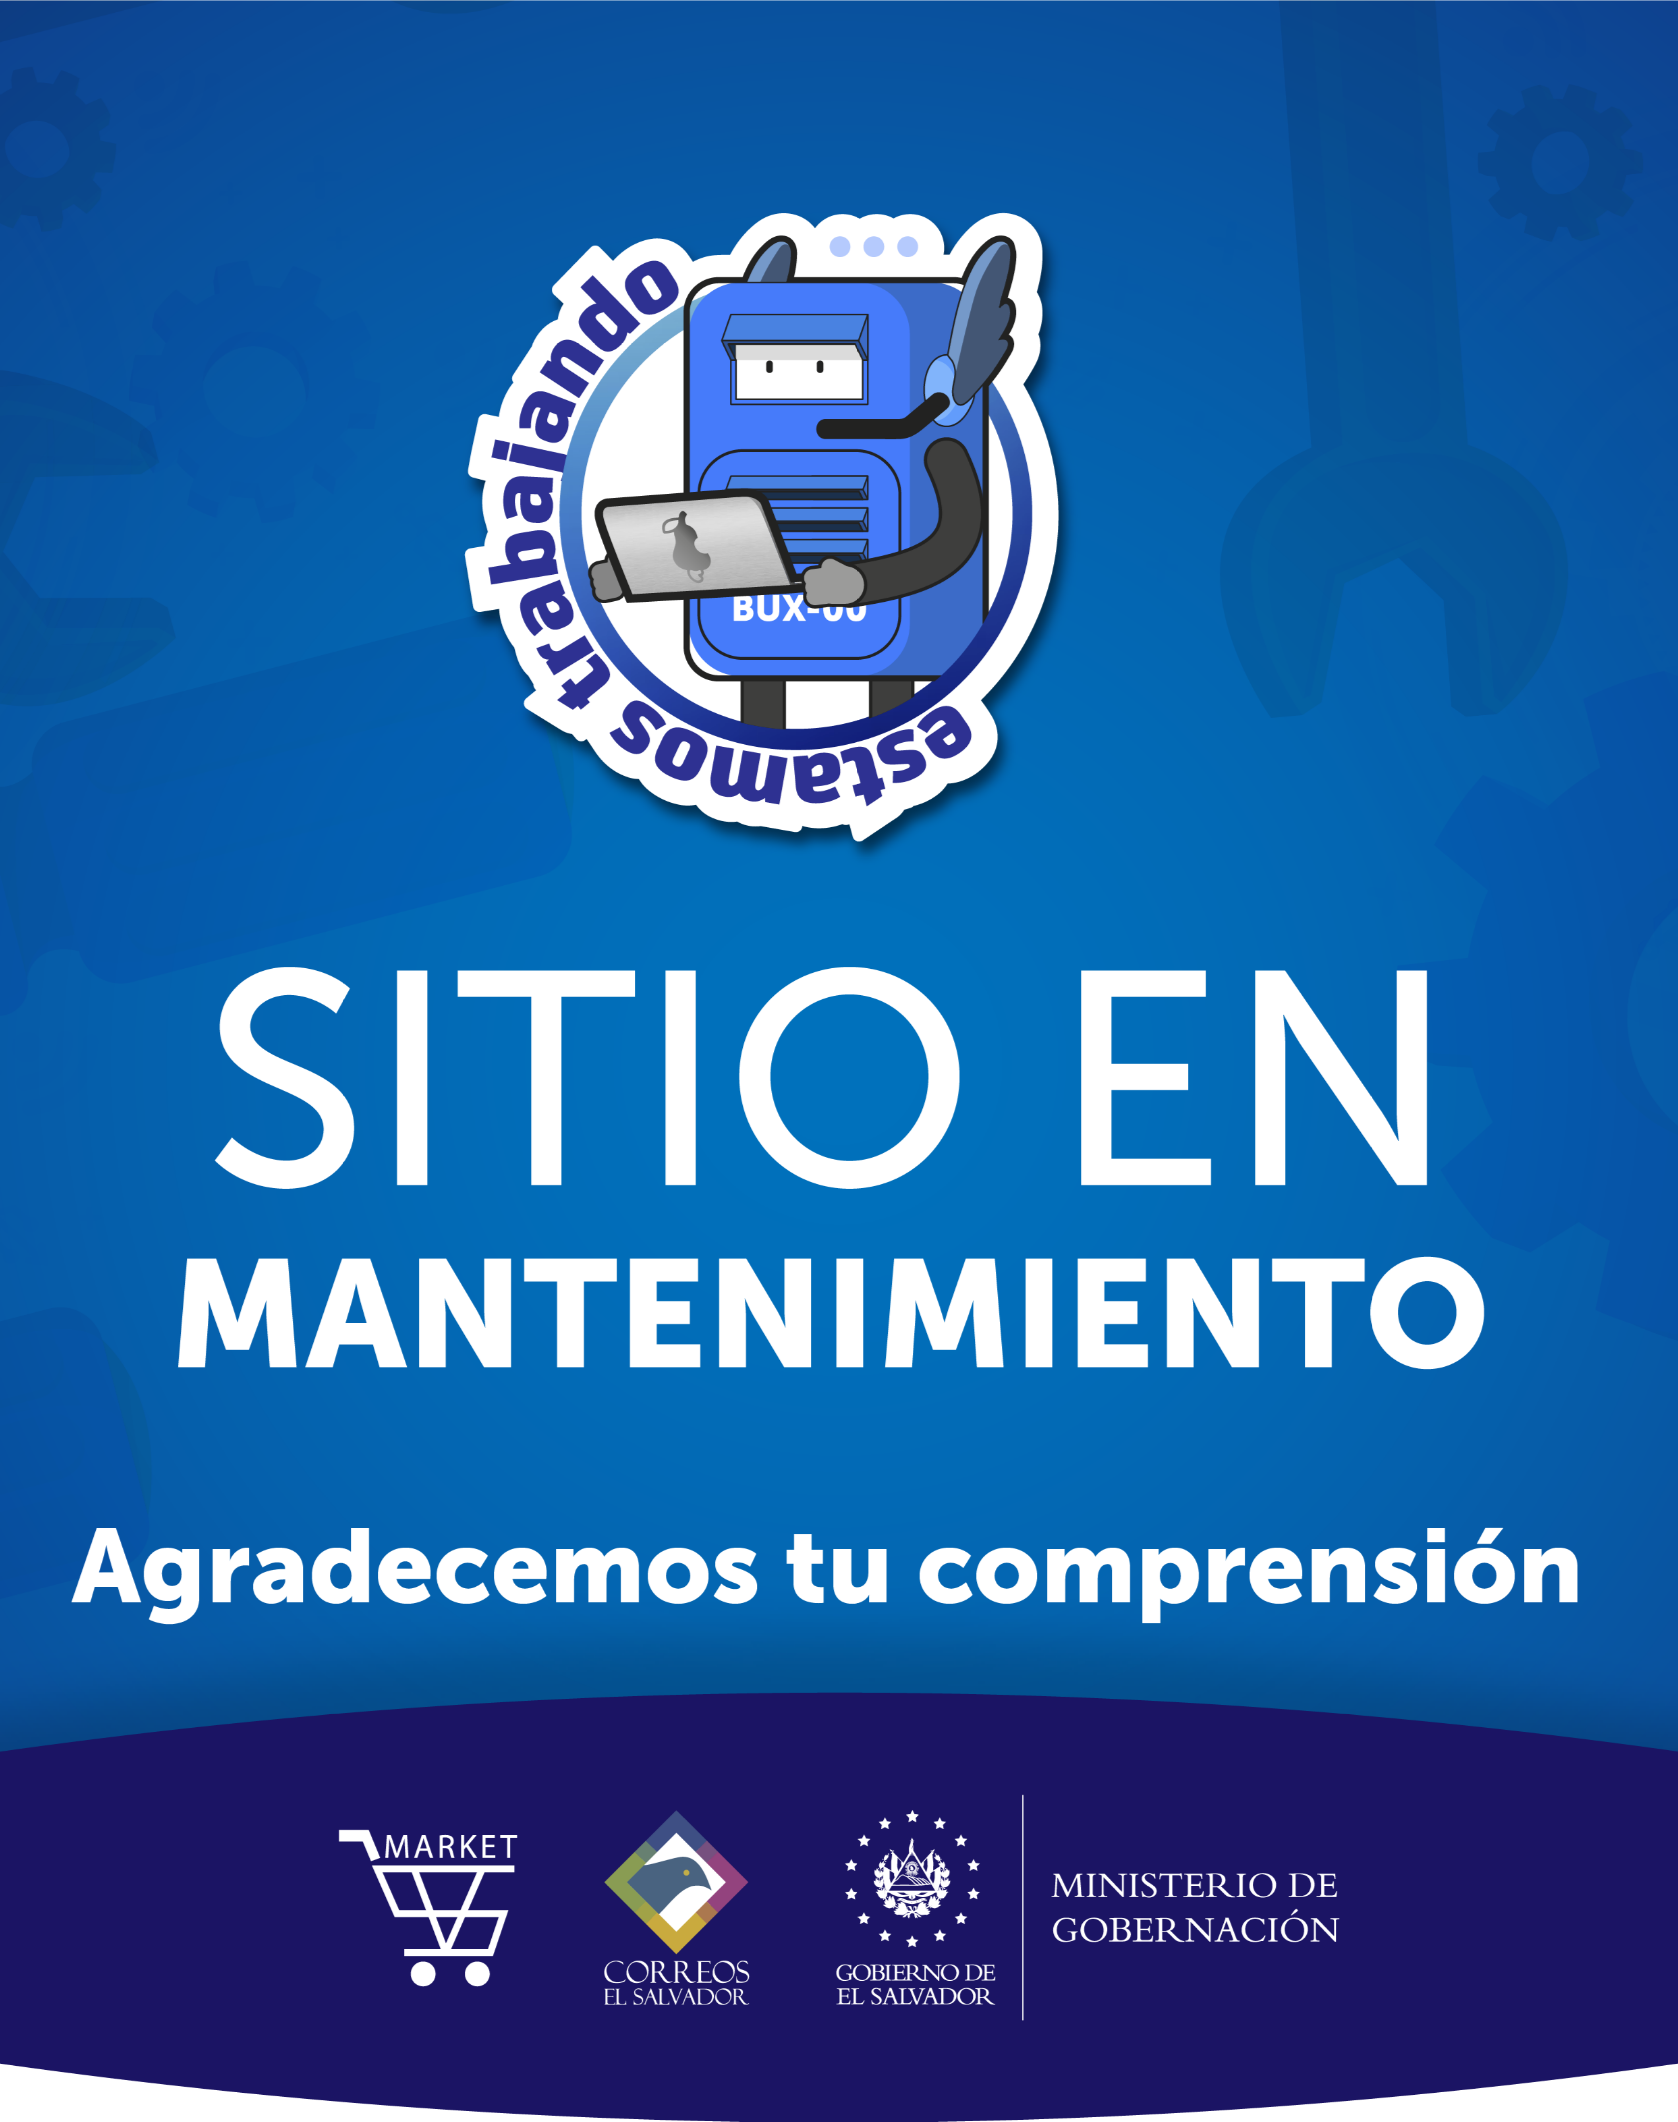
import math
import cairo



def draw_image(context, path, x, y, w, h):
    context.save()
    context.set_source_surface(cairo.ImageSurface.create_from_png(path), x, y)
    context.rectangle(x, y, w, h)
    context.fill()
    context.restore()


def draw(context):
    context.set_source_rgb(1, 1, 1)
    context.paint()
    draw_image(context, "images/1.png", 0, 0, 1678, 2122)


surface = cairo.ImageSurface(cairo.Format.RGB24, 1678, 2122)
context = cairo.Context(surface)
options = cairo.FontOptions()
options.set_hint_metrics(cairo.HintMetrics.OFF)
options.set_hint_style(cairo.HintStyle.NONE)
context.set_font_options(options)
context.set_miter_limit(4)
draw(context)
surface.write_to_png("out.png")
